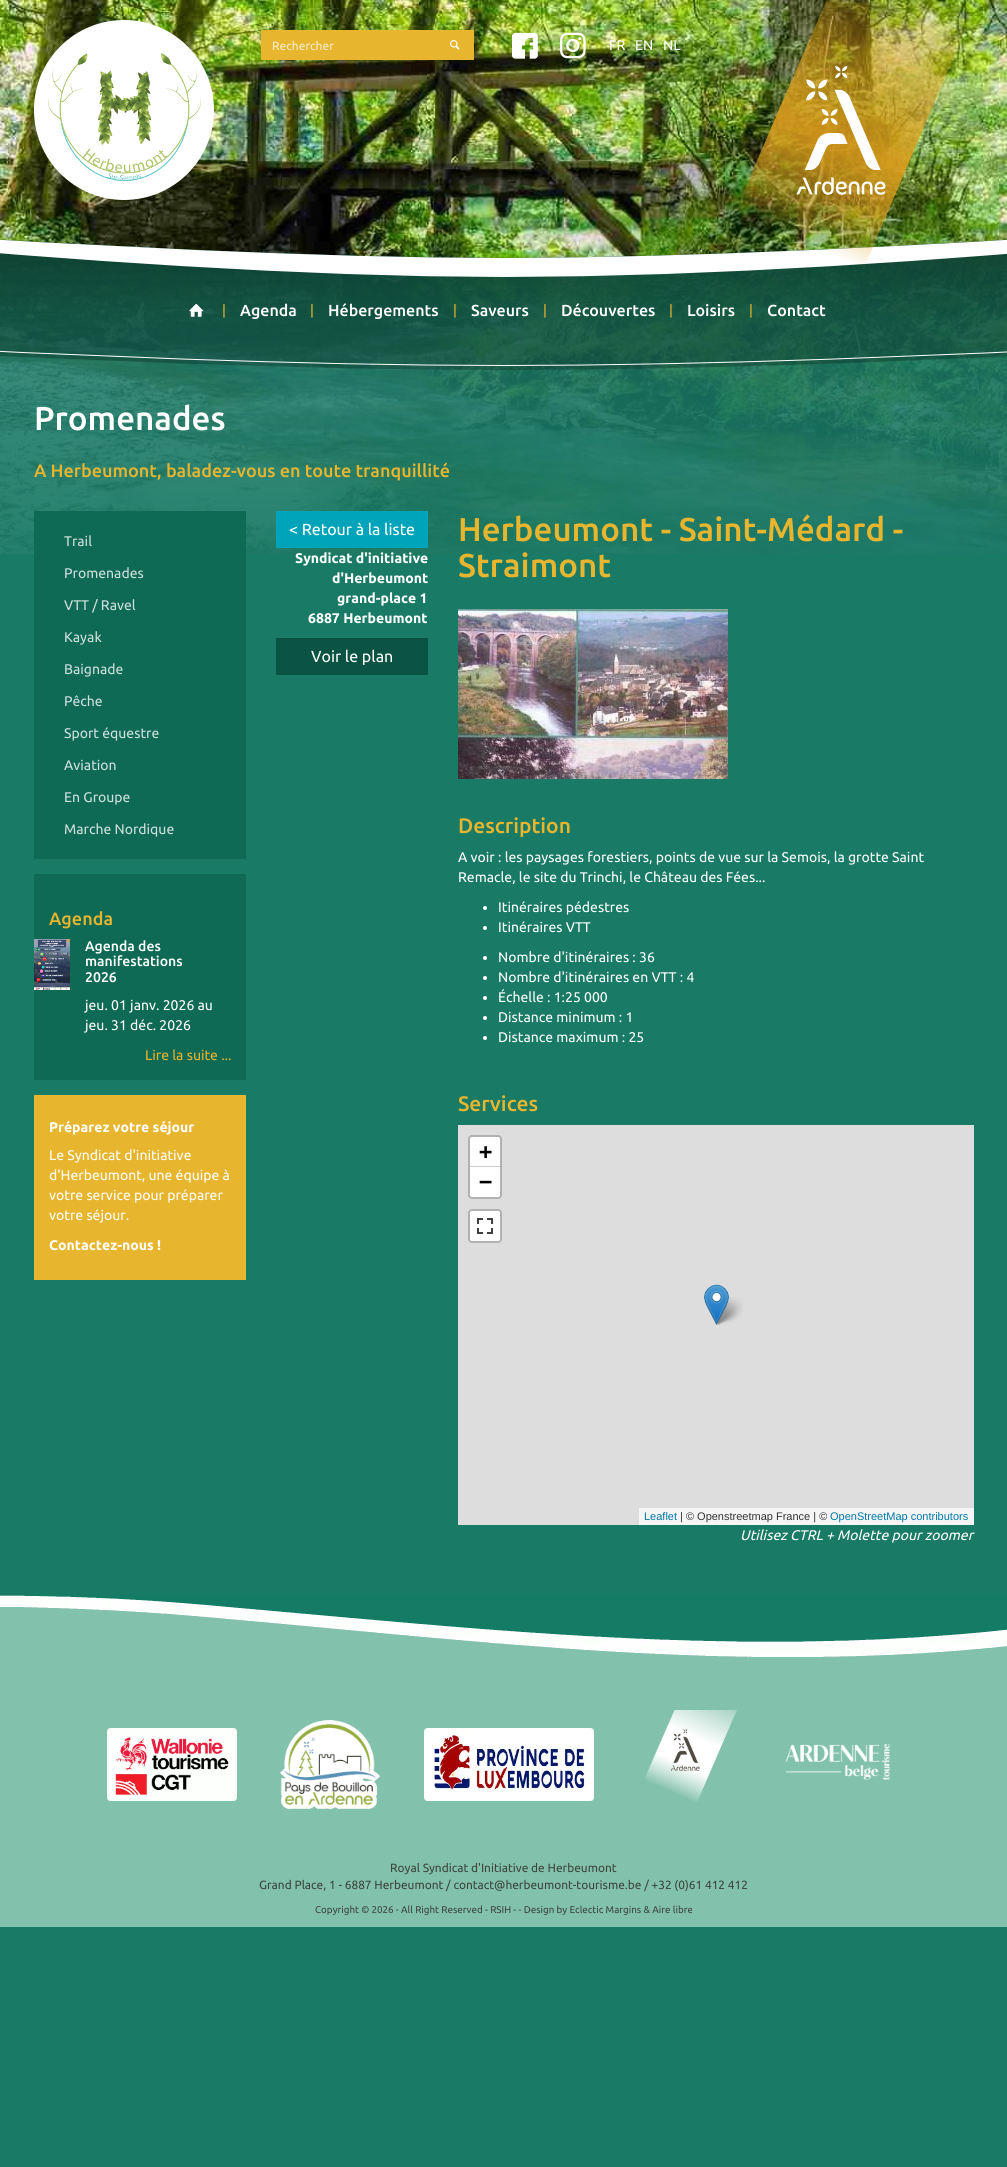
import math
import cairo



def rounded_rect(context, x, y, w, h, r):
    context.new_sub_path()
    for i, (u, v) in enumerate([(x + w - r, y + h - r), (x + r, y + h - r), (x + r, y + r), (x + w - r, y + r)]):
        context.arc(u, v, r, i * math.pi / 2, (i + 1) * math.pi / 2)
    context.close_path()


def draw_image(context, path, x, y, w, h):
    context.save()
    context.set_source_surface(cairo.ImageSurface.create_from_png(path), x, y)
    context.rectangle(x, y, w, h)
    context.fill()
    context.restore()


def draw(context):
    context.set_source_rgb(25 / 255, 122 / 255, 102 / 255)
    context.paint()
    draw_image(context, "images/1.png", 0, 0, 1007, 554)
    draw_image(context, "images/2.png", 0, 239, 1007, 131)
    context.set_source_rgb(1, 1, 1)
    context.arc(124, 110, 90, 0, 2 * math.pi)
    context.fill()
    draw_image(context, "images/3.png", 48, 53, 153, 128)
    context.set_source_rgb(231 / 255, 181 / 255, 46 / 255)
    context.rectangle(261, 30, 213, 30)
    context.fill()
    draw_image(context, "images/4.png", 450, 40, 10, 10)
    draw_image(context, "images/5.png", 512, 32, 26, 27)
    draw_image(context, "images/6.png", 560, 32, 26, 27)
    draw_image(context, "images/7.png", 737, 0, 236, 267)
    draw_image(context, "images/8.png", 189, 304, 15, 13)
    draw_image(context, "images/9.png", 0, 370, 1007, 184)
    context.set_source_rgb(14 / 255, 106 / 255, 85 / 255)
    context.rectangle(34, 511, 212, 348)
    context.fill()
    context.rectangle(34, 874, 212, 206)
    context.fill()
    draw_image(context, "images/10.png", 34, 939, 36, 51)
    context.set_source_rgb(231 / 255, 181 / 255, 46 / 255)
    context.rectangle(34, 1095, 212, 185)
    context.fill()
    context.set_source_rgb(0, 164 / 255, 186 / 255)
    context.rectangle(276, 511, 152, 37)
    context.fill()
    context.set_source_rgb(11 / 255, 83 / 255, 67 / 255)
    context.rectangle(276, 638, 152, 37)
    context.fill()
    draw_image(context, "images/11.png", 458, 609, 270, 170)
    context.set_source_rgb(1, 1, 1)
    context.arc(485, 908, 2, 0, 2 * math.pi)
    context.fill()
    context.arc(485, 928, 2, 0, 2 * math.pi)
    context.fill()
    context.arc(485, 958, 2, 0, 2 * math.pi)
    context.fill()
    context.arc(485, 978, 2, 0, 2 * math.pi)
    context.fill()
    context.arc(485, 998, 2, 0, 2 * math.pi)
    context.fill()
    context.arc(485, 1018, 2, 0, 2 * math.pi)
    context.fill()
    context.arc(485, 1038, 2, 0, 2 * math.pi)
    context.fill()
    context.set_source_rgb(221 / 255, 221 / 255, 221 / 255)
    context.rectangle(458, 1125, 516, 400)
    context.fill()
    rounded_rect(context, 469, 1136, 32, 62, 3)
    context.set_source_rgb(177 / 255, 177 / 255, 177 / 255)
    context.stroke()
    context.set_source_rgb(1, 1, 1)
    context.new_path()
    context.move_to(472, 1137)
    context.line_to(498, 1137)
    context.curve_to(499, 1137, 500, 1138, 500, 1139)
    context.line_to(500, 1167)
    context.line_to(470, 1167)
    context.line_to(470, 1139)
    context.curve_to(470, 1138, 471, 1137, 472, 1137)
    context.close_path()
    context.fill()
    context.set_source_rgb(204 / 255, 204 / 255, 204 / 255)
    context.rectangle(470, 1166, 30, 1)
    context.fill()
    context.set_source_rgb(1, 1, 1)
    context.new_path()
    context.move_to(470, 1167)
    context.line_to(500, 1167)
    context.line_to(500, 1195)
    context.curve_to(500, 1196, 499, 1197, 498, 1197)
    context.line_to(472, 1197)
    context.curve_to(471, 1197, 470, 1196, 470, 1195)
    context.close_path()
    context.fill()
    rounded_rect(context, 469, 1210, 32, 32, 3)
    context.set_source_rgb(177 / 255, 177 / 255, 177 / 255)
    context.stroke()
    context.set_source_rgb(1, 1, 1)
    rounded_rect(context, 470, 1211, 30, 30, 2)
    context.fill()
    draw_image(context, "images/12.png", 477, 1218, 16, 16)
    context.set_source_rgb(245 / 255, 245 / 255, 245 / 255)
    context.rectangle(639, 1508, 335, 17)
    context.fill()
    draw_image(context, "images/14.png", 714, 1297, 29, 28)
    draw_image(context, "images/13.png", 704, 1284, 25, 41)
    context.set_source_rgb(130 / 255, 193 / 255, 171 / 255)
    context.rectangle(0, 1657, 1007, 270)
    context.fill()
    draw_image(context, "images/15.png", 0, 1595, 1007, 62)
    draw_image(context, "images/16.png", 107, 1728, 130, 73)
    draw_image(context, "images/17.png", 280, 1720, 100, 89)
    draw_image(context, "images/18.png", 424, 1728, 170, 73)
    draw_image(context, "images/19.png", 645, 1710, 92, 92)
    draw_image(context, "images/20.png", 785, 1743, 105, 38)
    context.select_font_face("Ubuntu")
    context.set_font_size(12)
    context.set_source_rgb(249 / 255, 238 / 255, 206 / 255)
    context.move_to(272, 50)
    context.show_text("Rechercher")
    context.set_font_size(14)
    context.set_source_rgb(1, 1, 1)
    context.move_to(609, 50)
    context.show_text("FR")
    context.move_to(635, 50)
    context.show_text("EN")
    context.move_to(663, 50)
    context.show_text("NL")
    context.set_source_rgb(231 / 255, 181 / 255, 46 / 255)
    context.move_to(222, 315)
    context.show_text("|")
    context.select_font_face("Ubuntu Medium")
    context.set_font_size(16)
    context.set_source_rgb(1, 1, 1)
    context.move_to(240, 316)
    context.show_text("Agenda")
    context.select_font_face("Ubuntu")
    context.set_font_size(14)
    context.set_source_rgb(231 / 255, 181 / 255, 46 / 255)
    context.move_to(310, 315)
    context.show_text("|")
    context.select_font_face("Ubuntu Medium")
    context.set_font_size(16)
    context.set_source_rgb(1, 1, 1)
    context.move_to(328, 316)
    context.show_text("Hébergements")
    context.select_font_face("Ubuntu")
    context.set_font_size(14)
    context.set_source_rgb(231 / 255, 181 / 255, 46 / 255)
    context.move_to(453, 315)
    context.show_text("|")
    context.select_font_face("Ubuntu Medium")
    context.set_font_size(16)
    context.set_source_rgb(1, 1, 1)
    context.move_to(471, 316)
    context.show_text("Saveurs")
    context.select_font_face("Ubuntu")
    context.set_font_size(14)
    context.set_source_rgb(231 / 255, 181 / 255, 46 / 255)
    context.move_to(543, 315)
    context.show_text("|")
    context.select_font_face("Ubuntu Medium")
    context.set_font_size(16)
    context.set_source_rgb(1, 1, 1)
    context.move_to(561, 316)
    context.show_text("Découvertes")
    context.select_font_face("Ubuntu")
    context.set_font_size(14)
    context.set_source_rgb(231 / 255, 181 / 255, 46 / 255)
    context.move_to(669, 315)
    context.show_text("|")
    context.select_font_face("Ubuntu Medium")
    context.set_font_size(16)
    context.set_source_rgb(1, 1, 1)
    context.move_to(687, 316)
    context.show_text("Loisirs")
    context.select_font_face("Ubuntu")
    context.set_font_size(14)
    context.set_source_rgb(231 / 255, 181 / 255, 46 / 255)
    context.move_to(749, 315)
    context.show_text("|")
    context.select_font_face("Ubuntu Medium")
    context.set_font_size(16)
    context.set_source_rgb(1, 1, 1)
    context.move_to(767, 316)
    context.show_text("Contact")
    context.set_font_size(33)
    context.move_to(34, 430)
    context.show_text("Promenades")
    context.set_font_size(18)
    context.set_source_rgb(231 / 255, 181 / 255, 46 / 255)
    context.move_to(34, 477)
    context.show_text("A Herbeumont, baladez-vous en toute tranquillité")
    context.select_font_face("Ubuntu")
    context.set_font_size(14)
    context.set_source_rgb(207 / 255, 225 / 255, 221 / 255)
    context.move_to(64, 546)
    context.show_text("Trail")
    context.move_to(64, 578)
    context.show_text("Promenades")
    context.move_to(64, 610)
    context.show_text("VTT / Ravel")
    context.move_to(64, 642)
    context.show_text("Kayak")
    context.move_to(64, 674)
    context.show_text("Baignade")
    context.move_to(64, 706)
    context.show_text("Pêche")
    context.move_to(64, 738)
    context.show_text("Sport équestre")
    context.move_to(64, 770)
    context.show_text("Aviation")
    context.move_to(64, 802)
    context.show_text("En Groupe")
    context.move_to(64, 834)
    context.show_text("Marche Nordique")
    context.select_font_face("Ubuntu Medium")
    context.set_font_size(18)
    context.set_source_rgb(231 / 255, 181 / 255, 46 / 255)
    context.move_to(49, 925)
    context.show_text("Agenda")
    context.set_font_size(14)
    context.set_source_rgb(1, 1, 1)
    context.move_to(85, 951)
    context.show_text("Agenda des")
    context.move_to(85, 966)
    context.show_text("manifestations")
    context.move_to(85, 982)
    context.show_text("2026")
    context.select_font_face("Ubuntu")
    context.move_to(85, 1010)
    context.show_text("jeu. 01 janv. 2026 au")
    context.move_to(85, 1030)
    context.show_text("jeu. 31 déc. 2026")
    context.set_source_rgb(231 / 255, 181 / 255, 46 / 255)
    context.move_to(145, 1060)
    context.show_text("Lire la suite ...")
    context.select_font_face("Ubuntu", cairo.FontSlant.NORMAL, cairo.FontWeight.BOLD)
    context.set_source_rgb(1, 1, 1)
    context.move_to(49, 1132)
    context.show_text("Préparez votre séjour")
    context.select_font_face("Ubuntu")
    context.move_to(49, 1160)
    context.show_text("Le Syndicat d'initiative")
    context.move_to(49, 1180)
    context.show_text("d'Herbeumont, une équipe à")
    context.move_to(49, 1200)
    context.show_text("votre service pour préparer")
    context.move_to(49, 1220)
    context.show_text("votre séjour.")
    context.select_font_face("Ubuntu", cairo.FontSlant.NORMAL, cairo.FontWeight.BOLD)
    context.move_to(49, 1250)
    context.show_text("Contactez-nous !")
    context.select_font_face("Ubuntu")
    context.set_font_size(16)
    context.move_to(289, 535)
    context.show_text("< Retour à la liste")
    context.select_font_face("Ubuntu", cairo.FontSlant.NORMAL, cairo.FontWeight.BOLD)
    context.set_font_size(14)
    context.move_to(295, 563)
    context.show_text("Syndicat d'initiative")
    context.move_to(332, 583)
    context.show_text("d'Herbeumont")
    context.move_to(337, 603)
    context.show_text("grand-place 1")
    context.move_to(308, 623)
    context.show_text("6887 Herbeumont")
    context.select_font_face("Ubuntu")
    context.set_font_size(16)
    context.move_to(311, 662)
    context.show_text("Voir le plan")
    context.select_font_face("Ubuntu Medium")
    context.set_font_size(33)
    context.set_source_rgb(231 / 255, 181 / 255, 46 / 255)
    context.move_to(458, 541)
    context.show_text("Herbeumont - Saint-Médard -")
    context.move_to(458, 577)
    context.show_text("Straimont")
    context.set_font_size(21)
    context.move_to(458, 833)
    context.show_text("Description")
    context.select_font_face("Ubuntu")
    context.set_font_size(14)
    context.set_source_rgb(1, 1, 1)
    context.move_to(458, 862)
    context.show_text("A voir : les paysages forestiers, points de vue sur la Semois, la grotte Saint")
    context.move_to(458, 882)
    context.show_text("Remacle, le site du Trinchi, le Château des Fées...")
    context.move_to(498, 912)
    context.show_text("Itinéraires pédestres")
    context.move_to(498, 932)
    context.show_text("Itinéraires VTT")
    context.move_to(498, 962)
    context.show_text("Nombre d'itinéraires : 36")
    context.move_to(498, 982)
    context.show_text("Nombre d'itinéraires en VTT : 4")
    context.move_to(498, 1002)
    context.show_text("Échelle : 1:25 000")
    context.move_to(498, 1022)
    context.show_text("Distance minimum : 1")
    context.move_to(498, 1042)
    context.show_text("Distance maximum : 25")
    context.select_font_face("Ubuntu Medium")
    context.set_font_size(21)
    context.set_source_rgb(231 / 255, 181 / 255, 46 / 255)
    context.move_to(458, 1111)
    context.show_text("Services")
    context.select_font_face("DejaVu Sans Mono", cairo.FontSlant.NORMAL, cairo.FontWeight.BOLD)
    context.set_font_size(22)
    context.set_source_rgb(0, 0, 0)
    context.move_to(479, 1159)
    context.show_text("+")
    context.move_to(479, 1189)
    context.show_text("−")
    context.select_font_face("Liberation Sans")
    context.set_font_size(11)
    context.set_source_rgb(0, 120 / 255, 168 / 255)
    context.move_to(644, 1520)
    context.show_text("Leaflet")
    context.set_source_rgb(51 / 255, 51 / 255, 51 / 255)
    context.move_to(680, 1520)
    context.show_text("| © Openstreetmap France | ©")
    context.set_source_rgb(0, 120 / 255, 168 / 255)
    context.move_to(830, 1520)
    context.show_text("OpenStreetMap contributors")
    context.select_font_face("Ubuntu", cairo.FontSlant.ITALIC)
    context.set_font_size(14)
    context.set_source_rgb(1, 1, 1)
    context.move_to(740, 1540)
    context.show_text("Utilisez CTRL + Molette pour zoomer")
    context.select_font_face("Ubuntu")
    context.set_font_size(11.9)
    context.set_source_rgb(59 / 255, 68 / 255, 63 / 255)
    context.move_to(390, 1872)
    context.show_text("Royal Syndicat d'Initiative de Herbeumont")
    context.move_to(259, 1889)
    context.show_text("Grand Place, 1 - 6887 Herbeumont / contact@herbeumont-tourisme.be / +32 (0)61 412 412")
    context.set_font_size(9.8)
    context.move_to(315, 1913)
    context.show_text("Copyright © 2026 - All Right Reserved - RSIH - - Design by Eclectic Margins & Aire libre")


surface = cairo.ImageSurface(cairo.Format.RGB24, 1007, 2167)
context = cairo.Context(surface)
options = cairo.FontOptions()
options.set_hint_metrics(cairo.HintMetrics.OFF)
options.set_hint_style(cairo.HintStyle.NONE)
context.set_font_options(options)
context.set_miter_limit(4)
draw(context)
surface.write_to_png("out.png")
